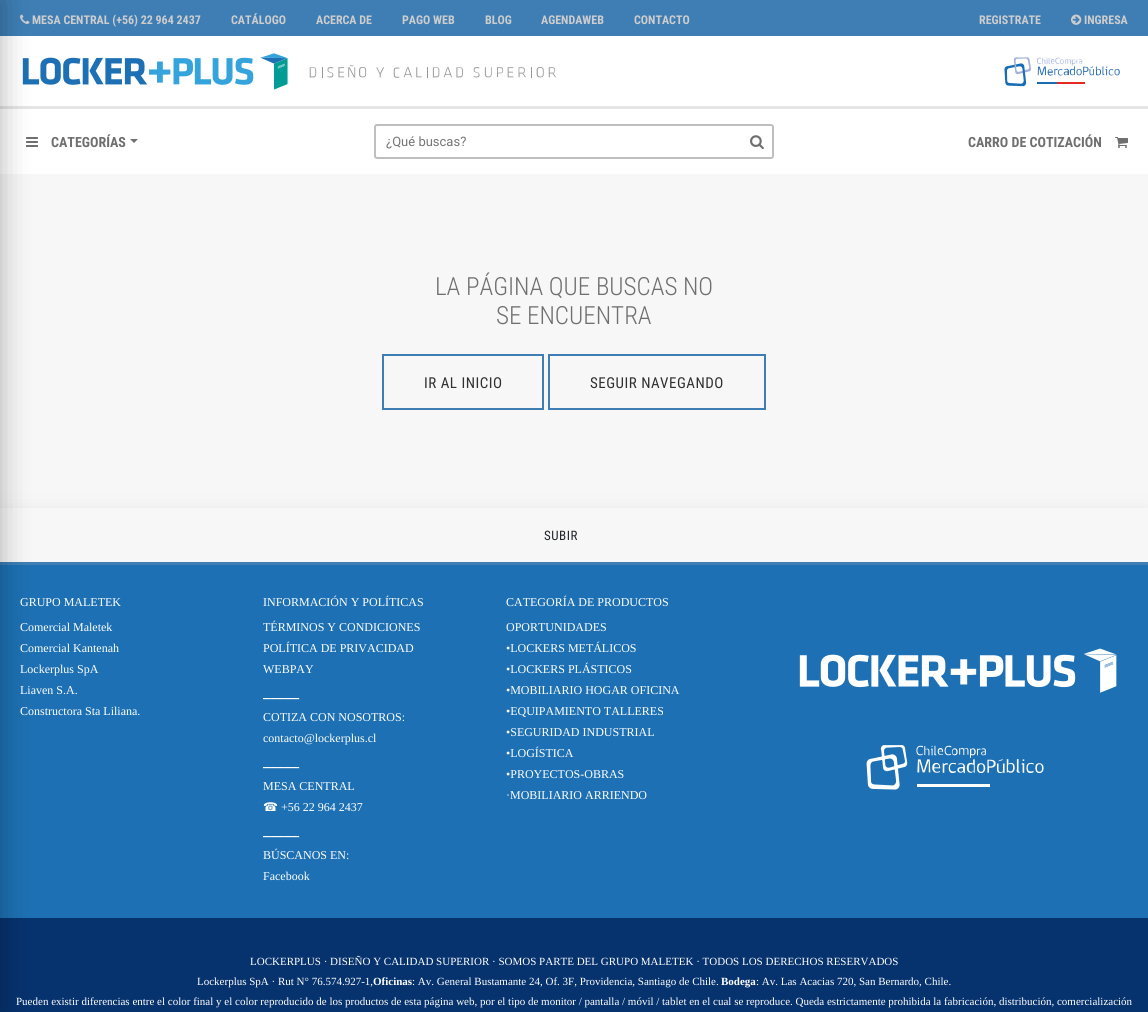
import math
import cairo



def draw_spaced(context, x, y, s, letter, word):
    context.move_to(x, y)
    for ch in s:
        context.show_text(ch)
        context.rel_move_to(letter + word * (ch == ' '), 0)


def rounded_rect(context, x, y, w, h, r):
    context.new_sub_path()
    for i, (u, v) in enumerate([(x + w - r, y + h - r), (x + r, y + h - r), (x + r, y + r), (x + w - r, y + r)]):
        context.arc(u, v, r, i * math.pi / 2, (i + 1) * math.pi / 2)
    context.close_path()


def draw_shadow(context, x, y, w, h, r, blur, alpha):
    context.push_group_with_content(cairo.Content.ALPHA)
    context.set_operator(cairo.Operator.SOURCE)
    for i in range(15, -16, -2):
        e = blur * i / 6
        if min(w, h) + 2 * e > 0:
            context.set_source_rgba(0, 0, 0, alpha * math.erfc((i - 1) / 8.5) / 2)
            rounded_rect(context, x - e, y - e, w + 2 * e, h + 2 * e, max(0, min(r + e + blur * .6, min(w, h) / 2 + e)))
            context.fill()
    context.mask(context.pop_group())


def draw_image(context, path, x, y, w, h):
    context.save()
    context.set_source_surface(cairo.ImageSurface.create_from_png(path), x, y)
    context.rectangle(x, y, w, h)
    context.fill()
    context.restore()


def draw(context):
    context.set_source_rgb(1, 1, 1)
    context.paint()
    context.set_source_rgb(62 / 255, 126 / 255, 180 / 255)
    context.rectangle(0, 0, 1148, 36)
    context.fill()
    draw_image(context, "images/1.png", 20, 14, 10, 10)
    context.set_source_rgb(229 / 255, 229 / 255, 229 / 255)
    context.rectangle(0, 106, 1148, 3)
    context.fill()
    draw_image(context, "images/3.png", 22, 53, 534, 37)
    draw_image(context, "images/5.png", 26, 137, 12, 10)
    context.set_source_rgb(247 / 255, 247 / 255, 247 / 255)
    context.rectangle(0, 174, 1148, 334)
    context.fill()
    context.set_source_rgb(97 / 255, 97 / 255, 97 / 255)
    draw_shadow(context, 0, 512, 1148, 54, 0, 11, 0.12)
    context.set_source_rgb(247 / 255, 247 / 255, 247 / 255)
    context.rectangle(0, 508, 1148, 54)
    context.fill()
    context.set_source_rgb(29 / 255, 112 / 255, 179 / 255)
    context.rectangle(0, 565, 1148, 353)
    context.fill()
    context.set_source_rgb(62 / 255, 126 / 255, 180 / 255)
    context.rectangle(0, 562, 1148, 3)
    context.fill()
    context.set_source_rgb(6 / 255, 50 / 255, 110 / 255)
    context.rectangle(0, 918, 1148, 94)
    context.fill()
    context.set_source_rgb(0, 0, 0)
    draw_shadow(context, -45, 0, 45, 1012, 0, 15, 0.3)
    draw_image(context, "images/2.png", 1071, 14, 11, 11)
    draw_image(context, "images/4.png", 1004, 57, 116, 30)
    context.set_source_rgb(111 / 255, 111 / 255, 111 / 255)
    context.new_path()
    context.move_to(130, 139)
    context.line_to(138, 139)
    context.line_to(134, 143)
    context.close_path()
    context.fill()
    rounded_rect(context, 375, 125, 398, 33, 2)
    context.set_source_rgb(191 / 255, 191 / 255, 191 / 255)
    context.stroke()
    draw_image(context, "images/6.png", 750, 135, 14, 15)
    draw_image(context, "images/7.png", 1115, 137, 13, 11)
    context.rectangle(383, 355, 160, 54)
    context.set_source_rgb(62 / 255, 126 / 255, 180 / 255)
    context.stroke()
    context.rectangle(549, 355, 216, 54)
    context.stroke()
    draw_image(context, "images/8.png", 799, 648, 318, 45)
    draw_image(context, "images/9.png", 866, 745, 178, 45)
    context.select_font_face("Roboto Condensed", cairo.FontSlant.NORMAL, cairo.FontWeight.BOLD)
    context.set_font_size(12)
    context.set_source_rgb(205 / 255, 205 / 255, 205 / 255)
    context.move_to(32, 24)
    context.show_text("MESA CENTRAL (+56) 22 964 2437")
    context.move_to(231, 24)
    context.show_text("CATÁLOGO")
    context.move_to(316, 24)
    context.show_text("ACERCA DE")
    context.move_to(402, 24)
    context.show_text("PAGO WEB")
    context.move_to(485, 24)
    context.show_text("BLOG")
    context.move_to(541, 24)
    context.show_text("AGENDAWEB")
    context.move_to(634, 24)
    context.show_text("CONTACTO")
    context.move_to(979, 24)
    context.show_text("REGISTRATE")
    context.move_to(1084, 24)
    context.show_text("INGRESA")
    context.set_font_size(14)
    context.set_source_rgb(111 / 255, 111 / 255, 111 / 255)
    context.move_to(51, 147)
    context.show_text("CATEGORÍAS")
    context.select_font_face("Roboto")
    context.set_font_size(13)
    context.set_source_rgb(117 / 255, 117 / 255, 117 / 255)
    context.move_to(386, 146)
    context.show_text("¿Qué buscas?")
    context.select_font_face("Roboto Condensed", cairo.FontSlant.NORMAL, cairo.FontWeight.BOLD)
    context.set_font_size(14)
    context.set_source_rgb(111 / 255, 111 / 255, 111 / 255)
    context.move_to(968, 147)
    context.show_text("CARRO DE COTIZACIÓN")
    context.select_font_face("Roboto Condensed Light")
    context.set_font_size(25)
    context.move_to(435, 295)
    context.show_text("LA PÁGINA QUE BUSCAS NO")
    context.move_to(496, 324)
    context.show_text("SE ENCUENTRA")
    context.select_font_face("Roboto Condensed")
    context.set_font_size(15)
    context.set_source_rgb(48 / 255, 48 / 255, 48 / 255)
    draw_spaced(context, 424, 388, "IR AL INICIO", 0.5, 0)
    draw_spaced(context, 590, 388, "SEGUIR NAVEGANDO", 0.5, 0)
    context.set_font_size(13)
    context.set_source_rgb(33 / 255, 37 / 255, 41 / 255)
    draw_spaced(context, 544, 540, "SUBIR", 0.5, 0)
    context.select_font_face("Liberation Serif")
    context.set_font_size(12)
    context.set_source_rgb(1, 1, 1)
    context.move_to(20, 606)
    context.show_text("GRUPO MALETEK")
    context.move_to(20, 631)
    context.show_text("Comercial Maletek")
    context.move_to(20, 652)
    context.show_text("Comercial Kantenah")
    context.move_to(20, 673)
    context.show_text("Lockerplus SpA")
    context.move_to(20, 694)
    context.show_text("Liaven S.A.")
    context.move_to(20, 715)
    context.show_text("Constructora Sta Liliana.")
    context.move_to(263, 606)
    context.show_text("INFORMACIÓN Y POLÍTICAS")
    context.move_to(263, 631)
    context.show_text("TÉRMINOS Y CONDICIONES")
    context.move_to(263, 652)
    context.show_text("POLÍTICA DE PRIVACIDAD")
    context.move_to(263, 673)
    context.show_text("WEBPAY")
    context.select_font_face("Roboto")
    context.set_font_size(16)
    context.move_to(263, 698)
    context.show_text("_____")
    context.select_font_face("Liberation Serif")
    context.set_font_size(12)
    context.move_to(263, 721)
    context.show_text("COTIZA CON NOSOTROS:")
    context.move_to(263, 742)
    context.show_text("contacto@lockerplus.cl")
    context.select_font_face("Roboto")
    context.set_font_size(16)
    context.move_to(263, 767)
    context.show_text("_____")
    context.select_font_face("Liberation Serif")
    context.set_font_size(12)
    context.move_to(263, 790)
    context.show_text("MESA CENTRAL")
    context.select_font_face("DejaVu Sans")
    context.move_to(263, 811)
    context.show_text("☎")
    context.select_font_face("Liberation Serif")
    context.move_to(281, 811)
    context.show_text("+56 22 964 2437")
    context.select_font_face("Roboto")
    context.set_font_size(16)
    context.move_to(263, 836)
    context.show_text("_____")
    context.select_font_face("Liberation Serif")
    context.set_font_size(12)
    context.move_to(263, 859)
    context.show_text("BÚSCANOS EN:")
    context.move_to(263, 880)
    context.show_text("Facebook")
    context.move_to(506, 606)
    context.show_text("CATEGORÍA DE PRODUCTOS")
    context.move_to(506, 631)
    context.show_text("OPORTUNIDADES")
    context.move_to(506, 652)
    context.show_text("•LOCKERS METÁLICOS")
    context.move_to(506, 673)
    context.show_text("•LOCKERS PLÁSTICOS")
    context.move_to(506, 694)
    context.show_text("•MOBILIARIO HOGAR OFICINA")
    context.move_to(506, 715)
    context.show_text("•EQUIPAMIENTO TALLERES")
    context.move_to(506, 736)
    context.show_text("•SEGURIDAD INDUSTRIAL")
    context.move_to(506, 757)
    context.show_text("•LOGÍSTICA")
    context.move_to(506, 778)
    context.show_text("•PROYECTOS-OBRAS")
    context.move_to(506, 799)
    context.show_text("·MOBILIARIO ARRIENDO")
    context.set_font_size(11)
    context.move_to(250, 965)
    context.show_text("LOCKERPLUS · DISEÑO Y CALIDAD SUPERIOR · SOMOS PARTE DEL GRUPO MALETEK · TODOS LOS DERECHOS RESERVADOS")
    context.move_to(197, 985)
    context.show_text("Lockerplus SpA · Rut N° 76.574.927-1,")
    context.select_font_face("Liberation Serif", cairo.FontSlant.NORMAL, cairo.FontWeight.BOLD)
    context.move_to(373, 985)
    context.show_text("Oficinas")
    context.select_font_face("Liberation Serif")
    context.move_to(412, 985)
    context.show_text(": Av. General Bustamante 24, Of. 3F, Providencia, Santiago de Chile.")
    context.select_font_face("Liberation Serif", cairo.FontSlant.NORMAL, cairo.FontWeight.BOLD)
    context.move_to(721, 985)
    context.show_text("Bodega")
    context.select_font_face("Liberation Serif")
    context.move_to(756, 985)
    context.show_text(": Av. Las Acacias 720, San Bernardo, Chile.")
    context.move_to(16, 1005)
    context.show_text("Pueden existir diferencias entre el color final y el color reproducido de los productos de esta página web, por el tipo de monitor / pantalla / móvil / tablet en el cual se reproduce. Queda estrictamente prohibida la fabricación, distribución, comercialización")


surface = cairo.ImageSurface(cairo.Format.RGB24, 1148, 1012)
context = cairo.Context(surface)
options = cairo.FontOptions()
options.set_hint_metrics(cairo.HintMetrics.OFF)
options.set_hint_style(cairo.HintStyle.NONE)
context.set_font_options(options)
context.set_miter_limit(4)
draw(context)
surface.write_to_png("out.png")
